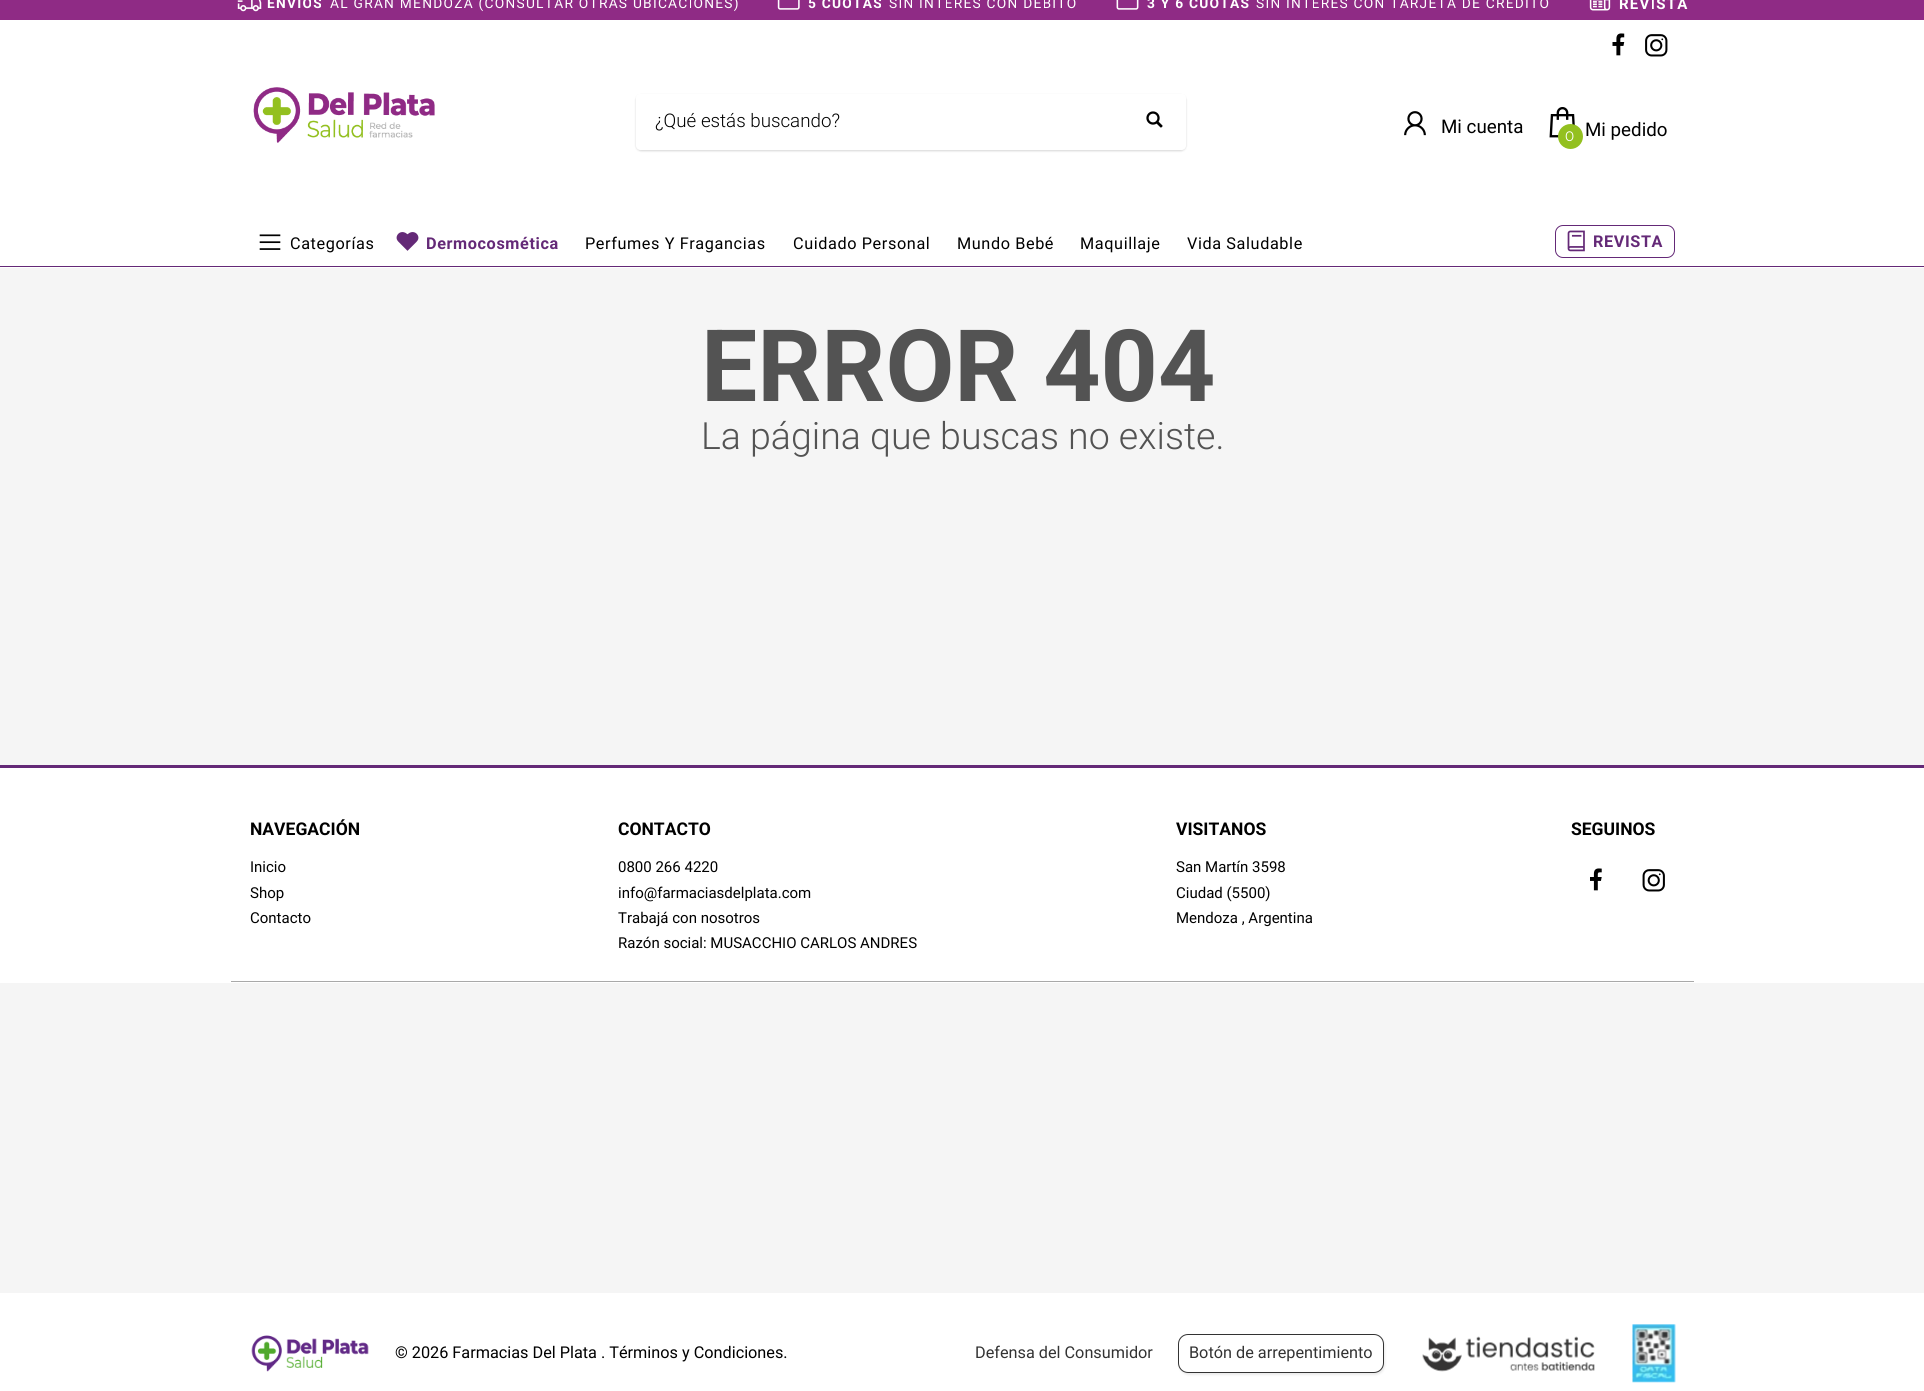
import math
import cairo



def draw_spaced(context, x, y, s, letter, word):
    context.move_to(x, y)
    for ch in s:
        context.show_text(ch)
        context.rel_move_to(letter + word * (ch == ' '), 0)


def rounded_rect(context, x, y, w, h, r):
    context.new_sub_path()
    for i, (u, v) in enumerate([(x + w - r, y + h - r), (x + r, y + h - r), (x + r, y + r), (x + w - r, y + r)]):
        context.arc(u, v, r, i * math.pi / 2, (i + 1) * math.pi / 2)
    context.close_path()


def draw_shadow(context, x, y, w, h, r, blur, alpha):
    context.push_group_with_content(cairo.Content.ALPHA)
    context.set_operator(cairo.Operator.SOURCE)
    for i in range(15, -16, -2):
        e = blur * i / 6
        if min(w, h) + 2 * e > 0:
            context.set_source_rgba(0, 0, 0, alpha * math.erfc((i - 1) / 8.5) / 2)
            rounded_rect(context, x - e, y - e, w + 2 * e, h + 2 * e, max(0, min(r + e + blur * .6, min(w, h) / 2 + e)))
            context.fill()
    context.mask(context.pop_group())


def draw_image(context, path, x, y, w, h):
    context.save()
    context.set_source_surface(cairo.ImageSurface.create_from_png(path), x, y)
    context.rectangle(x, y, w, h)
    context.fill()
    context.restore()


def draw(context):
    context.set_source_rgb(245 / 255, 245 / 255, 245 / 255)
    context.paint()
    context.set_source_rgb(143 / 255, 43 / 255, 133 / 255)
    context.rectangle(0, 0, 1924, 20)
    context.fill()
    draw_image(context, "images/1.png", 237, 0, 25, 12)
    draw_image(context, "images/2.png", 777, 0, 23, 10)
    draw_image(context, "images/3.png", 1116, 0, 23, 10)
    draw_image(context, "images/4.png", 1589, 0, 22, 11)
    context.set_source_rgb(1, 1, 1)
    context.rectangle(0, 20, 1924, 248)
    context.fill()
    draw_image(context, "images/5.png", 1612, 33, 13, 23)
    draw_image(context, "images/6.png", 1645, 34, 23, 23)
    draw_image(context, "images/7.png", 253, 87, 182, 56)
    context.save()
    context.set_fill_rule(cairo.FillRule.EVEN_ODD)
    context.new_path()
    context.move_to(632, 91)
    context.line_to(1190, 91)
    context.line_to(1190, 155)
    context.line_to(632, 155)
    context.close_path()
    context.move_to(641, 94)
    context.line_to(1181, 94)
    context.curve_to(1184, 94, 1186, 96, 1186, 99)
    context.line_to(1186, 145)
    context.curve_to(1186, 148, 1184, 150, 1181, 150)
    context.line_to(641, 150)
    context.curve_to(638, 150, 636, 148, 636, 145)
    context.line_to(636, 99)
    context.curve_to(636, 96, 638, 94, 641, 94)
    context.close_path()
    context.clip()
    context.set_source_rgb(0, 0, 0)
    draw_shadow(context, 636, 95, 550, 56, 5, 1, 0.16)
    context.restore()
    draw_image(context, "images/8.png", 1146, 111, 17, 17)
    draw_image(context, "images/9.png", 1404, 111, 22, 25)
    draw_image(context, "images/10.png", 1549, 107, 26, 31)
    context.set_source_rgb(147 / 255, 192 / 255, 31 / 255)
    context.arc(1570.5, 136.5, 12.5, 0, 2 * math.pi)
    context.fill()
    context.set_source_rgb(100 / 255, 41 / 255, 119 / 255)
    context.rectangle(0, 266, 1924, 1)
    context.fill()
    draw_image(context, "images/11.png", 259, 234, 22, 16)
    draw_image(context, "images/12.png", 396, 232, 23, 19)
    rounded_rect(context, 1555.5, 225.5, 119, 32, 7.5)
    context.set_line_width(1)
    context.stroke()
    draw_image(context, "images/13.png", 1567, 230, 18, 22)
    context.set_source_rgb(1, 1, 1)
    context.rectangle(0, 768, 1924, 215)
    context.fill()
    context.set_source_rgb(100 / 255, 41 / 255, 119 / 255)
    context.rectangle(0, 765, 1924, 3)
    context.fill()
    context.set_source_rgb(169 / 255, 169 / 255, 169 / 255)
    context.rectangle(231, 981, 1463, 1)
    context.fill()
    draw_image(context, "images/14.png", 1590, 868, 12, 23)
    draw_image(context, "images/15.png", 1642, 869, 23, 23)
    context.set_source_rgb(1, 1, 1)
    context.rectangle(0, 1293, 1924, 98)
    context.fill()
    draw_image(context, "images/16.png", 251, 1335, 118, 37)
    context.save()
    context.set_fill_rule(cairo.FillRule.EVEN_ODD)
    context.new_path()
    context.move_to(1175, 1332)
    context.line_to(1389, 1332)
    context.line_to(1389, 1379)
    context.line_to(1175, 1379)
    context.close_path()
    context.move_to(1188, 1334)
    context.line_to(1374, 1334)
    context.curve_to(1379.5, 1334, 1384, 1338.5, 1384, 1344)
    context.line_to(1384, 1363)
    context.curve_to(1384, 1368.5, 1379.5, 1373, 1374, 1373)
    context.line_to(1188, 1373)
    context.curve_to(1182.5, 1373, 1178, 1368.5, 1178, 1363)
    context.line_to(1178, 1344)
    context.curve_to(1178, 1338.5, 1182.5, 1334, 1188, 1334)
    context.close_path()
    context.clip()
    context.set_source_rgb(51 / 255, 51 / 255, 51 / 255)
    draw_shadow(context, 1179, 1336, 206, 39, 10, 1, 0.1)
    context.restore()
    rounded_rect(context, 1178.5, 1334.5, 205, 38, 9.5)
    context.set_source_rgb(51 / 255, 51 / 255, 51 / 255)
    context.stroke()
    draw_image(context, "images/17.png", 1422, 1336, 173, 36)
    draw_image(context, "images/18.png", 1632, 1324, 44, 59)
    context.select_font_face("Roboto", cairo.FontSlant.NORMAL, cairo.FontWeight.BOLD)
    context.set_font_size(13.75)
    context.set_source_rgb(1, 1, 1)
    draw_spaced(context, 267, 8, "ENVÍOS", 1.25, 0)
    context.select_font_face("Roboto")
    draw_spaced(context, 330, 8, "AL GRAN MENDOZA (CONSULTAR OTRAS UBICACIONES)", 1.25, 0)
    context.select_font_face("Roboto", cairo.FontSlant.NORMAL, cairo.FontWeight.BOLD)
    draw_spaced(context, 808, 8, "5 CUOTAS", 1.25, 0)
    context.select_font_face("Roboto")
    draw_spaced(context, 889, 8, "SIN INTERÉS CON DÉBITO", 1.25, 0)
    context.select_font_face("Roboto", cairo.FontSlant.NORMAL, cairo.FontWeight.BOLD)
    draw_spaced(context, 1147, 8, "3 Y 6 CUOTAS", 1.25, 0)
    context.select_font_face("Roboto")
    draw_spaced(context, 1256, 8, "SIN INTERÉS CON TARJETA DE CRÉDITO", 1.25, 0)
    context.select_font_face("Roboto", cairo.FontSlant.NORMAL, cairo.FontWeight.BOLD)
    context.set_font_size(15)
    draw_spaced(context, 1619, 9, "REVISTA", 1.25, 0)
    context.select_font_face("Roboto Light")
    context.set_font_size(18.75)
    context.set_source_rgb(0, 0, 0)
    context.move_to(655, 127)
    context.show_text("¿Qué estás buscando?")
    context.select_font_face("Roboto")
    context.move_to(1441, 133)
    context.show_text("Mi cuenta")
    context.select_font_face("Montserrat")
    context.set_font_size(13.75)
    context.set_source_rgb(1, 1, 1)
    context.move_to(1565, 141)
    context.show_text("0")
    context.select_font_face("Roboto")
    context.set_font_size(18.75)
    context.set_source_rgb(0, 0, 0)
    context.move_to(1585, 136)
    context.show_text("Mi pedido")
    context.set_font_size(16.25)
    draw_spaced(context, 290, 249, "Categorías", 0.6, 0)
    context.select_font_face("Roboto", cairo.FontSlant.NORMAL, cairo.FontWeight.BOLD)
    context.set_source_rgb(100 / 255, 41 / 255, 119 / 255)
    draw_spaced(context, 426, 249, "Dermocosmética", 0.6, 0)
    context.select_font_face("Roboto")
    context.set_source_rgb(0, 0, 0)
    draw_spaced(context, 585, 249, "Perfumes Y Fragancias", 0.6, 0)
    draw_spaced(context, 793, 249, "Cuidado Personal", 0.6, 0)
    draw_spaced(context, 957, 249, "Mundo Bebé", 0.6, 0)
    draw_spaced(context, 1080, 249, "Maquillaje", 0.6, 0)
    draw_spaced(context, 1187, 249, "Vida Saludable", 0.6, 0)
    context.select_font_face("Roboto", cairo.FontSlant.NORMAL, cairo.FontWeight.BOLD)
    context.set_source_rgb(100 / 255, 41 / 255, 119 / 255)
    draw_spaced(context, 1593, 247, "REVISTA", 0.6, 0)
    context.set_font_size(100)
    context.set_source_rgb(83 / 255, 83 / 255, 83 / 255)
    context.move_to(701, 401)
    context.show_text("ERROR 404")
    context.select_font_face("Roboto Light")
    context.set_font_size(37.5)
    context.move_to(701, 449)
    context.show_text("La página que buscas no existe.")
    context.select_font_face("Roboto", cairo.FontSlant.NORMAL, cairo.FontWeight.BOLD)
    context.set_font_size(17.5)
    context.set_source_rgb(0, 0, 0)
    context.move_to(250, 835)
    context.show_text("NAVEGACIÓN")
    context.select_font_face("Roboto")
    context.set_font_size(15)
    context.move_to(250, 872)
    context.show_text("Inicio")
    context.move_to(250, 898)
    context.show_text("Shop")
    context.move_to(250, 923)
    context.show_text("Contacto")
    context.select_font_face("Roboto", cairo.FontSlant.NORMAL, cairo.FontWeight.BOLD)
    context.set_font_size(17.5)
    context.move_to(618, 835)
    context.show_text("CONTACTO")
    context.select_font_face("Roboto")
    context.set_font_size(15)
    context.move_to(618, 872)
    context.show_text("0800 266 4220")
    context.move_to(618, 898)
    context.show_text("info@farmaciasdelplata.com")
    context.move_to(618, 923)
    context.show_text("Trabajá con nosotros")
    context.move_to(618, 948)
    context.show_text("Razón social: MUSACCHIO CARLOS ANDRES")
    context.select_font_face("Roboto", cairo.FontSlant.NORMAL, cairo.FontWeight.BOLD)
    context.set_font_size(17.5)
    context.move_to(1176, 835)
    context.show_text("VISITANOS")
    context.select_font_face("Roboto")
    context.set_font_size(15)
    context.move_to(1176, 872)
    context.show_text("San Martín 3598")
    context.move_to(1176, 898)
    context.show_text("Ciudad (5500)")
    context.move_to(1176, 923)
    context.show_text("Mendoza , Argentina")
    context.select_font_face("Roboto", cairo.FontSlant.NORMAL, cairo.FontWeight.BOLD)
    context.set_font_size(17.5)
    context.move_to(1571, 835)
    context.show_text("SEGUINOS")
    context.select_font_face("Roboto")
    context.set_font_size(16.25)
    context.move_to(395, 1358)
    context.show_text("© 2026 Farmacias Del Plata . Términos y Condiciones.")
    context.set_source_rgb(51 / 255, 51 / 255, 51 / 255)
    context.move_to(975, 1358)
    context.show_text("Defensa del Consumidor")
    context.move_to(1189, 1358)
    context.show_text("Botón de arrepentimiento")


surface = cairo.ImageSurface(cairo.Format.RGB24, 1924, 1391)
context = cairo.Context(surface)
options = cairo.FontOptions()
options.set_hint_metrics(cairo.HintMetrics.OFF)
options.set_hint_style(cairo.HintStyle.NONE)
context.set_font_options(options)
context.set_miter_limit(4)
draw(context)
surface.write_to_png("out.png")
